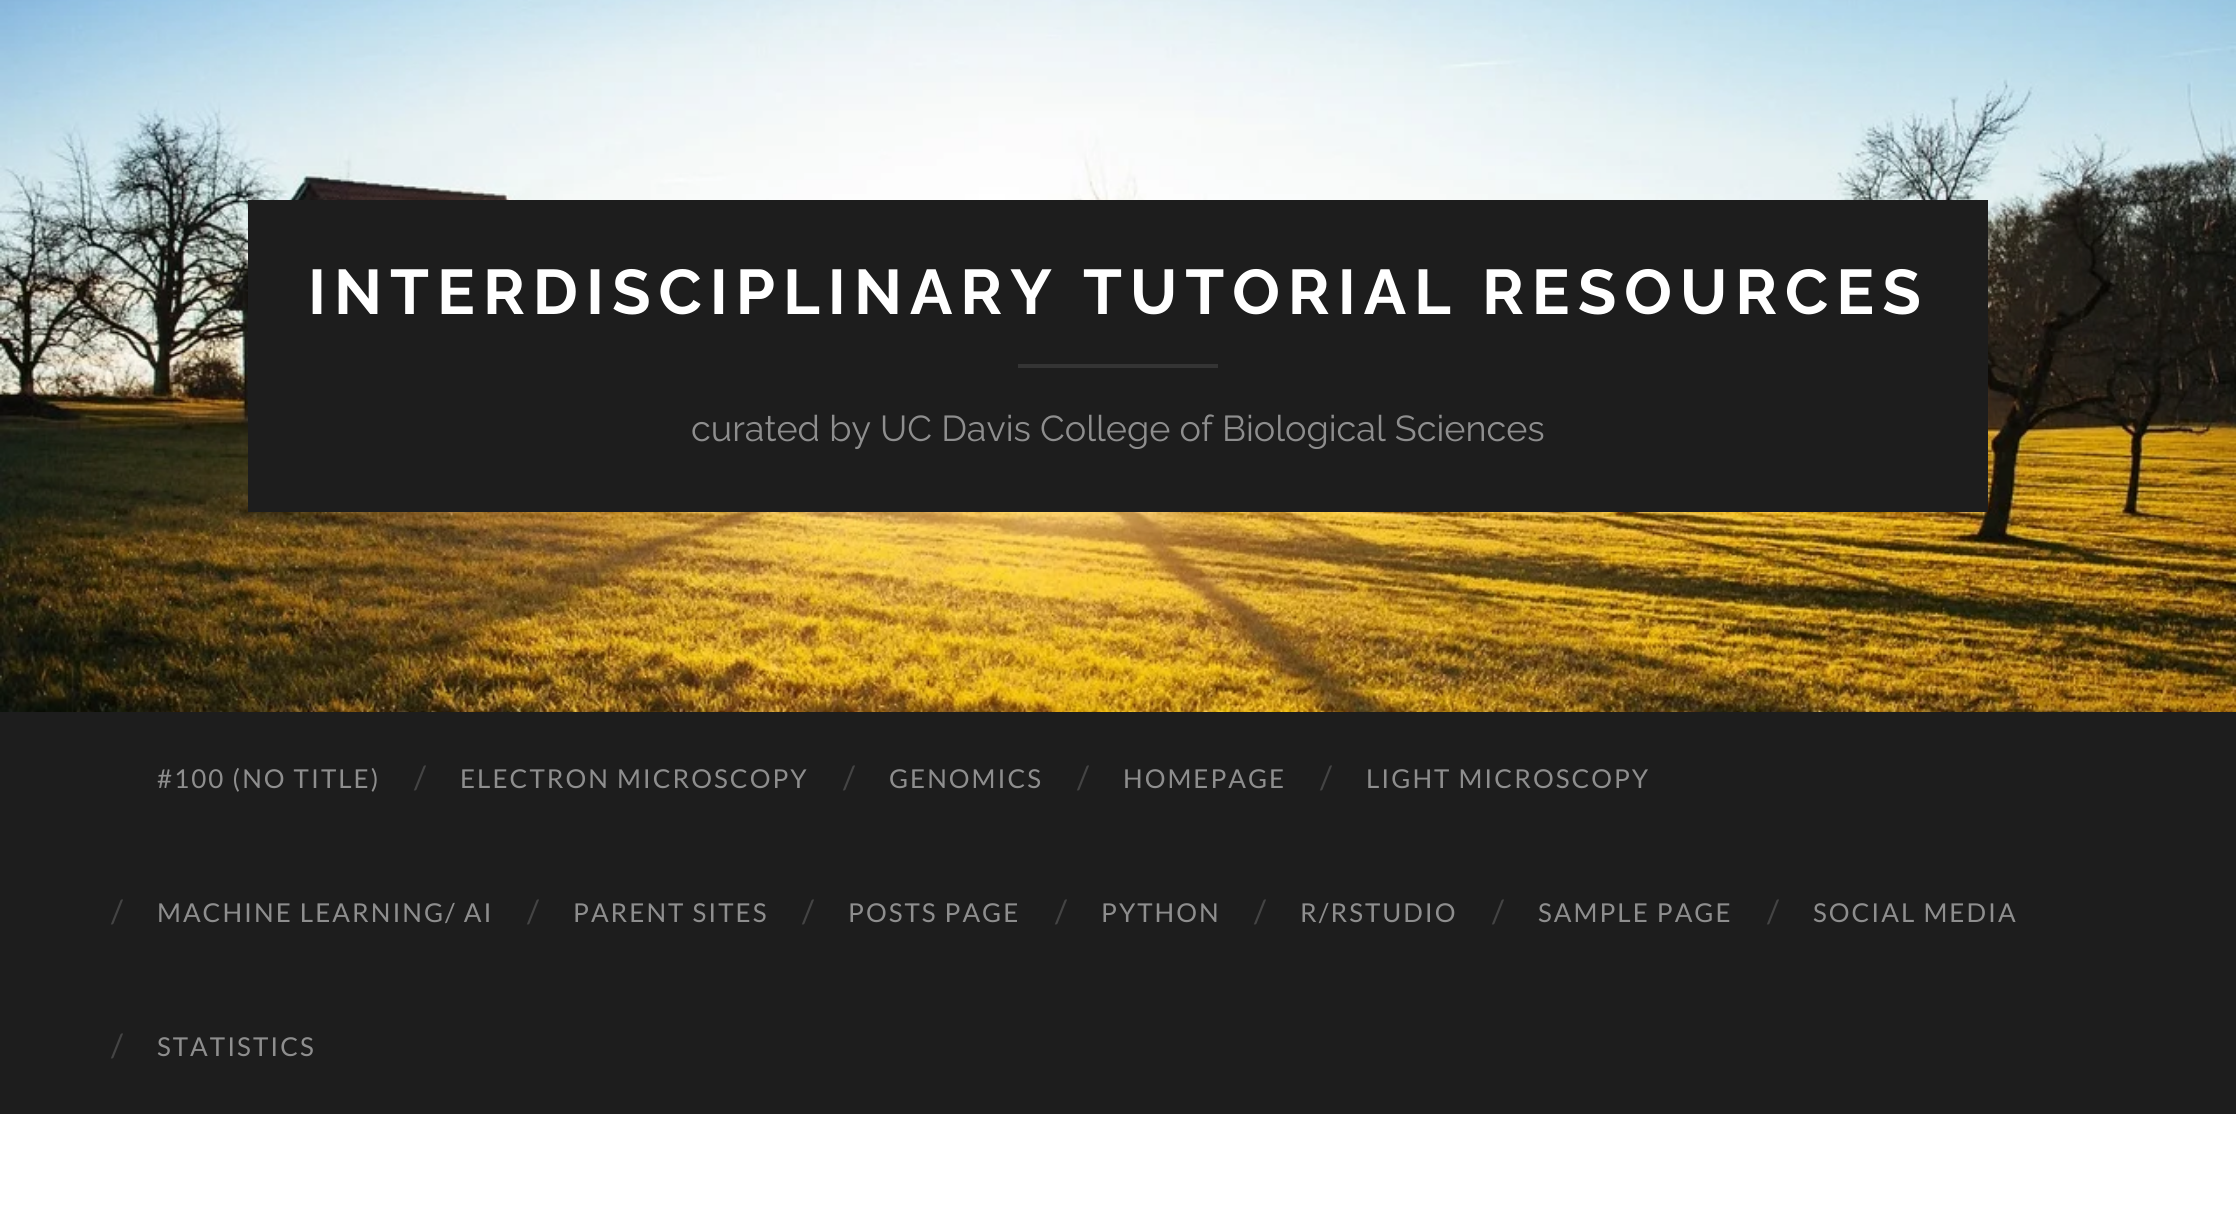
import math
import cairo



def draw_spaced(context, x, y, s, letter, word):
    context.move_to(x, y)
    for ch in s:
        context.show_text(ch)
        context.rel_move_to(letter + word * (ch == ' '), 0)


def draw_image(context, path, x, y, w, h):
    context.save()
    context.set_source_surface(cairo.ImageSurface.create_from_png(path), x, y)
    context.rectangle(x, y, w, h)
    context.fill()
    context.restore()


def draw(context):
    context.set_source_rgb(1, 1, 1)
    context.paint()
    draw_image(context, "images/1.png", 0, 0, 2236, 712)
    context.set_source_rgb(29 / 255, 29 / 255, 29 / 255)
    context.rectangle(248, 200, 1740, 312)
    context.fill()
    context.set_source_rgb(52 / 255, 52 / 255, 52 / 255)
    context.rectangle(1018, 364, 200, 4)
    context.fill()
    context.set_source_rgb(29 / 255, 29 / 255, 29 / 255)
    context.rectangle(0, 712, 2236, 402)
    context.fill()
    context.select_font_face("Raleway Thin")
    context.set_font_size(63)
    context.set_source_rgb(1, 1, 1)
    draw_spaced(context, 308, 314, "INTERDISCIPLINARY TUTORIAL RESOURCES", 8, 0)
    context.select_font_face("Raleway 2 Thin")
    context.set_font_size(36)
    context.set_source_rgb(142 / 255, 142 / 255, 142 / 255)
    context.move_to(691, 441)
    context.show_text("curated by UC Davis College of Biological Sciences")
    context.select_font_face("Lato")
    context.set_font_size(26)
    draw_spaced(context, 157, 788, "#100 (NO TITLE)", 2, 0)
    context.set_font_size(32)
    context.set_source_rgb(68 / 255, 68 / 255, 68 / 255)
    context.move_to(414, 789)
    context.show_text("/")
    context.set_font_size(26)
    context.set_source_rgb(142 / 255, 142 / 255, 142 / 255)
    draw_spaced(context, 460, 788, "ELECTRON MICROSCOPY", 2, 0)
    context.set_font_size(32)
    context.set_source_rgb(68 / 255, 68 / 255, 68 / 255)
    context.move_to(843, 789)
    context.show_text("/")
    context.set_font_size(26)
    context.set_source_rgb(142 / 255, 142 / 255, 142 / 255)
    draw_spaced(context, 889, 788, "GENOMICS", 2, 0)
    context.set_font_size(32)
    context.set_source_rgb(68 / 255, 68 / 255, 68 / 255)
    context.move_to(1077, 789)
    context.show_text("/")
    context.set_font_size(26)
    context.set_source_rgb(142 / 255, 142 / 255, 142 / 255)
    draw_spaced(context, 1123, 788, "HOMEPAGE", 2, 0)
    context.set_font_size(32)
    context.set_source_rgb(68 / 255, 68 / 255, 68 / 255)
    context.move_to(1320, 789)
    context.show_text("/")
    context.set_font_size(26)
    context.set_source_rgb(142 / 255, 142 / 255, 142 / 255)
    draw_spaced(context, 1366, 788, "LIGHT MICROSCOPY", 2, 0)
    context.set_font_size(32)
    context.set_source_rgb(68 / 255, 68 / 255, 68 / 255)
    context.move_to(111, 923)
    context.show_text("/")
    context.set_font_size(26)
    context.set_source_rgb(142 / 255, 142 / 255, 142 / 255)
    draw_spaced(context, 157, 922, "MACHINE LEARNING/ AI", 2, 0)
    context.set_font_size(32)
    context.set_source_rgb(68 / 255, 68 / 255, 68 / 255)
    context.move_to(527, 923)
    context.show_text("/")
    context.set_font_size(26)
    context.set_source_rgb(142 / 255, 142 / 255, 142 / 255)
    draw_spaced(context, 573, 922, "PARENT SITES", 2, 0)
    context.set_font_size(32)
    context.set_source_rgb(68 / 255, 68 / 255, 68 / 255)
    context.move_to(802, 923)
    context.show_text("/")
    context.set_font_size(26)
    context.set_source_rgb(142 / 255, 142 / 255, 142 / 255)
    draw_spaced(context, 848, 922, "POSTS PAGE", 2, 0)
    context.set_font_size(32)
    context.set_source_rgb(68 / 255, 68 / 255, 68 / 255)
    context.move_to(1055, 923)
    context.show_text("/")
    context.set_font_size(26)
    context.set_source_rgb(142 / 255, 142 / 255, 142 / 255)
    draw_spaced(context, 1101, 922, "PYTHON", 2, 0)
    context.set_font_size(32)
    context.set_source_rgb(68 / 255, 68 / 255, 68 / 255)
    context.move_to(1254, 923)
    context.show_text("/")
    context.set_font_size(26)
    context.set_source_rgb(142 / 255, 142 / 255, 142 / 255)
    draw_spaced(context, 1300, 922, "R/RSTUDIO", 2, 0)
    context.set_font_size(32)
    context.set_source_rgb(68 / 255, 68 / 255, 68 / 255)
    context.move_to(1492, 923)
    context.show_text("/")
    context.set_font_size(26)
    context.set_source_rgb(142 / 255, 142 / 255, 142 / 255)
    draw_spaced(context, 1538, 922, "SAMPLE PAGE", 2, 0)
    context.set_font_size(32)
    context.set_source_rgb(68 / 255, 68 / 255, 68 / 255)
    context.move_to(1767, 923)
    context.show_text("/")
    context.set_font_size(26)
    context.set_source_rgb(142 / 255, 142 / 255, 142 / 255)
    draw_spaced(context, 1813, 922, "SOCIAL MEDIA", 2, 0)
    context.set_font_size(32)
    context.set_source_rgb(68 / 255, 68 / 255, 68 / 255)
    context.move_to(111, 1057)
    context.show_text("/")
    context.set_font_size(26)
    context.set_source_rgb(142 / 255, 142 / 255, 142 / 255)
    draw_spaced(context, 157, 1056, "STATISTICS", 2, 0)


surface = cairo.ImageSurface(cairo.Format.RGB24, 2236, 1205)
context = cairo.Context(surface)
options = cairo.FontOptions()
options.set_hint_metrics(cairo.HintMetrics.OFF)
options.set_hint_style(cairo.HintStyle.NONE)
context.set_font_options(options)
context.set_miter_limit(4)
draw(context)
surface.write_to_png("out.png")
